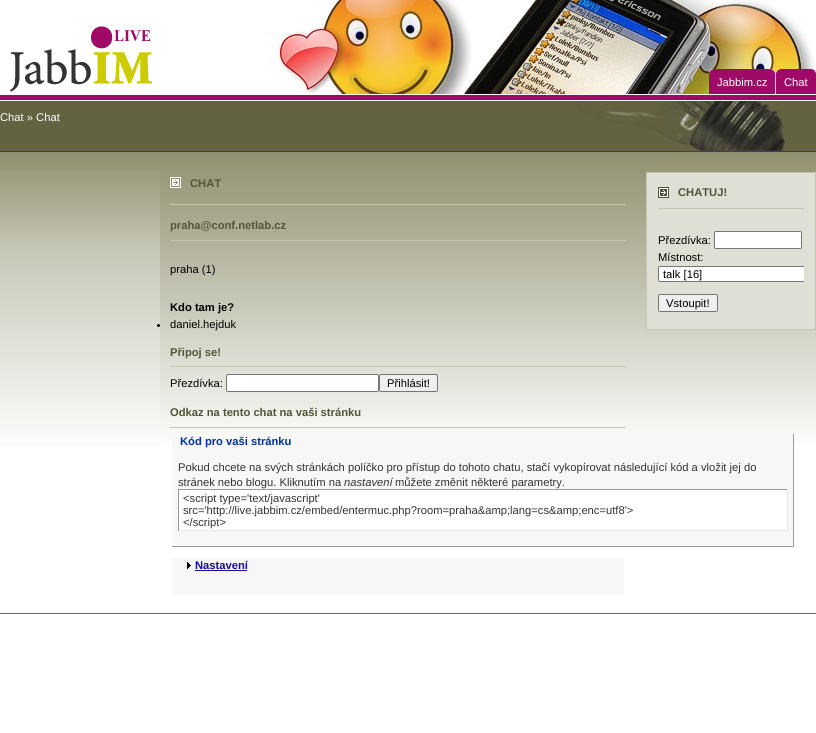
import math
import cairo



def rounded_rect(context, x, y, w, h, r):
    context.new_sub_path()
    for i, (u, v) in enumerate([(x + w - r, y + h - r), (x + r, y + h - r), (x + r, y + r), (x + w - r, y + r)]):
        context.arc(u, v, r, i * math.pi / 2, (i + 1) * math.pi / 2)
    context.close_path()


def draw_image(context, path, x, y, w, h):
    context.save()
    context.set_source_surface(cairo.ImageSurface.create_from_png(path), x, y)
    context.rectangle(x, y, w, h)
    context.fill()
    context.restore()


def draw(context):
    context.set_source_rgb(1, 1, 1)
    context.paint()
    context.set_source_rgb(158 / 255, 10 / 255, 102 / 255)
    context.rectangle(0, 95, 816, 5)
    context.fill()
    draw_image(context, "images/1.png", 266, 0, 549, 95)
    draw_image(context, "images/2.png", 10, 26, 142, 66)
    draw_image(context, "images/3.png", 709, 69, 5, 25)
    context.set_source_rgb(1, 1, 1)
    context.rectangle(709, 94, 66, 1)
    context.fill()
    draw_image(context, "images/4.png", 714, 69, 61, 25)
    draw_image(context, "images/5.png", 776, 69, 5, 25)
    context.rectangle(776, 94, 40, 1)
    context.fill()
    draw_image(context, "images/6.png", 781, 69, 35, 25)
    context.set_source_rgb(99 / 255, 99 / 255, 65 / 255)
    context.rectangle(0, 101, 816, 50)
    context.fill()
    draw_image(context, "images/7.png", 577, 101, 212, 50)
    context.set_source_rgb(158 / 255, 10 / 255, 102 / 255)
    context.rectangle(0, 151, 816, 1)
    context.fill()
    draw_image(context, "images/8.png", 0, 152, 816, 291)
    draw_image(context, "images/9.png", 0, 171, 160, 276)
    draw_image(context, "images/10.png", 170, 177, 11, 11)
    context.set_source_rgb(197 / 255, 197 / 255, 180 / 255)
    context.rectangle(170, 204, 456, 1)
    context.fill()
    context.rectangle(170, 240, 456, 1)
    context.fill()
    context.set_source_rgb(0, 0, 0)
    context.arc(158.5, 325.5, 1.5, 0, 2 * math.pi)
    context.fill()
    context.set_source_rgb(197 / 255, 197 / 255, 180 / 255)
    context.rectangle(170, 366, 456, 1)
    context.fill()
    context.set_source_rgb(1, 1, 1)
    rounded_rect(context, 226.5, 374.5, 152, 17, 1.5)
    context.fill_preserve()
    context.set_source_rgb(118 / 255, 118 / 255, 118 / 255)
    context.set_line_width(1)
    context.stroke()
    context.set_source_rgb(239 / 255, 239 / 255, 239 / 255)
    rounded_rect(context, 379.5, 374.5, 58, 17, 1.5)
    context.fill_preserve()
    context.set_source_rgb(118 / 255, 118 / 255, 118 / 255)
    context.stroke()
    context.set_source_rgb(197 / 255, 197 / 255, 180 / 255)
    context.rectangle(170, 427, 456, 1)
    context.fill()
    context.set_source_rgb(247 / 255, 247 / 255, 247 / 255)
    context.rectangle(172, 438, 621, 108)
    context.fill()
    context.set_source_rgb(153 / 255, 153 / 255, 153 / 255)
    context.rectangle(793, 434, 1, 113)
    context.fill()
    context.rectangle(172, 546, 622, 1)
    context.fill()
    context.set_source_rgb(1, 1, 1)
    context.rectangle(179, 490, 608, 40)
    context.fill()
    context.set_source_rgb(153 / 255, 153 / 255, 153 / 255)
    context.rectangle(178, 489, 610, 1)
    context.fill()
    context.set_source_rgb(231 / 255, 231 / 255, 231 / 255)
    context.rectangle(787, 489, 1, 42)
    context.fill()
    context.rectangle(178, 530, 610, 1)
    context.fill()
    context.set_source_rgb(153 / 255, 153 / 255, 153 / 255)
    context.rectangle(178, 489, 1, 42)
    context.fill()
    context.set_source_rgb(247 / 255, 247 / 255, 247 / 255)
    context.rectangle(172, 558, 452, 37)
    context.fill()
    draw_image(context, "images/11.png", 187, 562, 4, 7)
    context.set_source_rgb(21 / 255, 10 / 255, 158 / 255)
    context.rectangle(195, 570, 52, 1)
    context.fill()
    context.set_source_rgb(223 / 255, 223 / 255, 214 / 255)
    context.rectangle(646.5, 172.5, 169, 157)
    context.fill_preserve()
    context.set_source_rgb(197 / 255, 197 / 255, 180 / 255)
    context.stroke()
    draw_image(context, "images/12.png", 658, 187, 11, 11)
    context.rectangle(658, 208, 146, 1)
    context.fill()
    context.set_source_rgb(1, 1, 1)
    rounded_rect(context, 714.5, 231.5, 87, 17, 1.5)
    context.fill_preserve()
    context.set_source_rgb(118 / 255, 118 / 255, 118 / 255)
    context.stroke()
    context.set_source_rgb(1, 1, 1)
    context.new_path()
    context.move_to(660, 266)
    context.line_to(804, 266)
    context.line_to(804, 282)
    context.line_to(660, 282)
    context.curve_to(659, 282, 658, 281, 658, 280)
    context.line_to(658, 268)
    context.curve_to(658, 267, 659, 266, 660, 266)
    context.close_path()
    context.fill()
    context.save()
    context.rectangle(658, 220, 146, 92)
    context.clip()
    rounded_rect(context, 658.5, 266.5, 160, 15, 1.5)
    context.set_source_rgb(118 / 255, 118 / 255, 118 / 255)
    context.stroke()
    context.restore()
    context.set_source_rgb(239 / 255, 239 / 255, 239 / 255)
    rounded_rect(context, 658.5, 294.5, 59, 17, 1.5)
    context.fill_preserve()
    context.set_source_rgb(118 / 255, 118 / 255, 118 / 255)
    context.stroke()
    context.set_source_rgb(102 / 255, 102 / 255, 102 / 255)
    context.rectangle(0, 613, 816, 1)
    context.fill()
    context.select_font_face("Liberation Sans")
    context.set_font_size(11.2)
    context.set_source_rgb(1, 1, 1)
    context.move_to(717, 86)
    context.show_text("Jabbim.cz")
    context.move_to(784, 86)
    context.show_text("Chat")
    context.move_to(0, 121)
    context.show_text("Chat » Chat")
    context.select_font_face("Liberation Sans", cairo.FontSlant.NORMAL, cairo.FontWeight.BOLD)
    context.set_source_rgb(84 / 255, 84 / 255, 56 / 255)
    context.move_to(190, 187)
    context.show_text("CHAT")
    context.move_to(170, 229)
    context.show_text("praha@conf.netlab.cz")
    context.select_font_face("Liberation Sans")
    context.set_source_rgb(0, 0, 0)
    context.move_to(170, 273)
    context.show_text("praha (1)")
    context.select_font_face("Liberation Sans", cairo.FontSlant.NORMAL, cairo.FontWeight.BOLD)
    context.move_to(170, 311)
    context.show_text("Kdo tam je?")
    context.select_font_face("Liberation Sans")
    context.move_to(170, 328)
    context.show_text("daniel.hejduk")
    context.select_font_face("Liberation Sans", cairo.FontSlant.NORMAL, cairo.FontWeight.BOLD)
    context.set_source_rgb(84 / 255, 84 / 255, 56 / 255)
    context.move_to(170, 356)
    context.show_text("Připoj se!")
    context.select_font_face("Liberation Sans")
    context.set_source_rgb(0, 0, 0)
    context.move_to(170, 387)
    context.show_text("Přezdívka:")
    context.move_to(387, 387)
    context.show_text("Přihlásit!")
    context.select_font_face("Liberation Sans", cairo.FontSlant.NORMAL, cairo.FontWeight.BOLD)
    context.set_source_rgb(84 / 255, 84 / 255, 56 / 255)
    context.move_to(170, 416)
    context.show_text("Odkaz na tento chat na vaši stránku")
    context.set_source_rgb(0, 51 / 255, 153 / 255)
    context.move_to(180, 445)
    context.show_text("Kód pro vaši stránku")
    context.select_font_face("Liberation Sans")
    context.set_source_rgb(51 / 255, 51 / 255, 51 / 255)
    context.move_to(178, 471)
    context.show_text("Pokud chcete na svých stránkách políčko pro přístup do tohoto chatu, stačí vykopírovat následující kód a vložit jej do")
    context.move_to(178, 486)
    context.show_text("stránek nebo blogu. Kliknutím na")
    context.select_font_face("Liberation Sans", cairo.FontSlant.ITALIC)
    context.move_to(344, 486)
    context.show_text("nastavení")
    context.select_font_face("Liberation Sans")
    context.move_to(395, 486)
    context.show_text("můžete změnit některé parametry.")
    context.move_to(183, 502)
    context.show_text("<script type='text/javascript'")
    context.move_to(183, 514)
    context.show_text("src='http://live.jabbim.cz/embed/entermuc.php?room=praha&amp;lang=cs&amp;enc=utf8'>")
    context.move_to(183, 526)
    context.show_text("</script>")
    context.select_font_face("Liberation Sans", cairo.FontSlant.NORMAL, cairo.FontWeight.BOLD)
    context.set_source_rgb(21 / 255, 10 / 255, 158 / 255)
    context.move_to(195, 569)
    context.show_text("Nastavení")
    context.set_source_rgb(84 / 255, 84 / 255, 56 / 255)
    context.move_to(678, 196)
    context.show_text("CHATUJ!")
    context.select_font_face("Liberation Sans")
    context.set_source_rgb(0, 0, 0)
    context.move_to(658, 244)
    context.show_text("Přezdívka:")
    context.move_to(658, 261)
    context.show_text("Místnost:")
    context.move_to(663, 278)
    context.show_text("talk [16]")
    context.move_to(666, 307)
    context.show_text("Vstoupit!")


surface = cairo.ImageSurface(cairo.Format.RGB24, 816, 733)
context = cairo.Context(surface)
options = cairo.FontOptions()
options.set_hint_metrics(cairo.HintMetrics.OFF)
options.set_hint_style(cairo.HintStyle.NONE)
context.set_font_options(options)
context.set_miter_limit(4)
draw(context)
surface.write_to_png("out.png")
